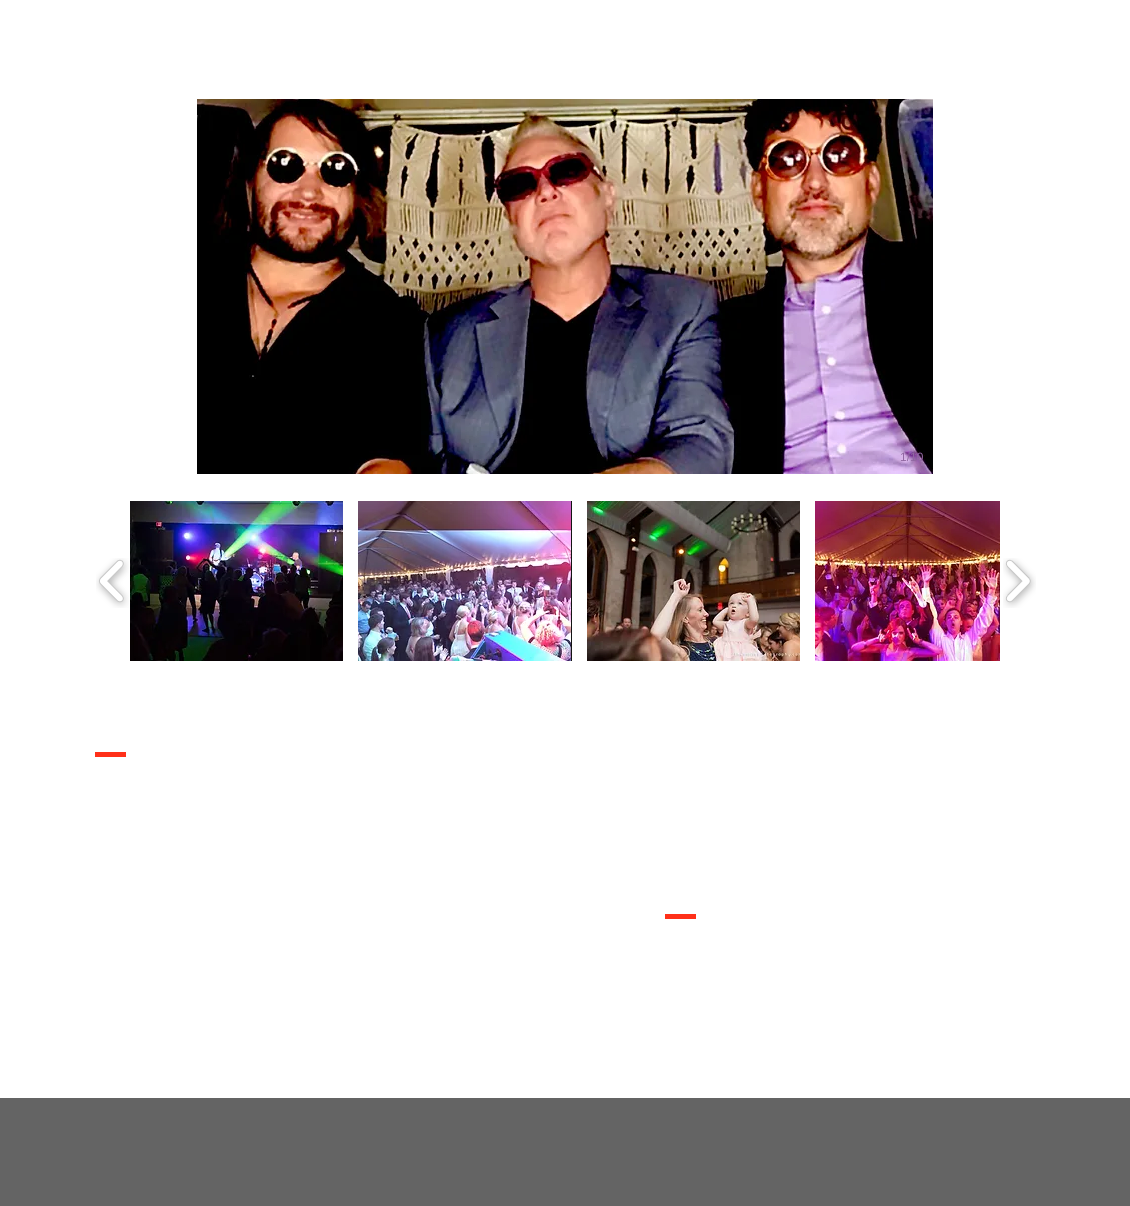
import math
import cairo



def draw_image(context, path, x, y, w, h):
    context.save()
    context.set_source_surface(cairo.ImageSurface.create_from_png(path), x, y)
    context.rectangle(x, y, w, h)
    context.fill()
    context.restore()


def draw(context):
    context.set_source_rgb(1, 1, 1)
    context.paint()
    draw_image(context, "images/1.png", 197, 99, 736, 375)
    draw_image(context, "images/2.png", 96, 558, 33, 50)
    draw_image(context, "images/3.png", 130, 501, 213, 160)
    context.set_source_rgb(20 / 255, 20 / 255, 20 / 255)
    context.rectangle(571, 501, 1, 160)
    context.fill()
    draw_image(context, "images/4.png", 358, 501, 213, 160)
    draw_image(context, "images/5.png", 587, 501, 213, 160)
    draw_image(context, "images/6.png", 815, 501, 185, 160)
    draw_image(context, "images/7.png", 1003, 558, 33, 50)
    context.set_source_rgb(1, 48 / 255, 25 / 255)
    context.rectangle(95, 752, 31, 5)
    context.fill()
    context.rectangle(665, 914, 31, 5)
    context.fill()
    context.set_source_rgb(100 / 255, 100 / 255, 100 / 255)
    context.rectangle(0, 1098, 1130, 108)
    context.fill()
    context.select_font_face("Liberation Sans")
    context.set_font_size(12)
    context.set_source_rgb(144 / 255, 103 / 255, 161 / 255)
    context.move_to(900, 461)
    context.show_text("1/10")


surface = cairo.ImageSurface(cairo.Format.RGB24, 1130, 1206)
context = cairo.Context(surface)
options = cairo.FontOptions()
options.set_hint_metrics(cairo.HintMetrics.OFF)
options.set_hint_style(cairo.HintStyle.NONE)
context.set_font_options(options)
context.set_miter_limit(4)
draw(context)
surface.write_to_png("out.png")
